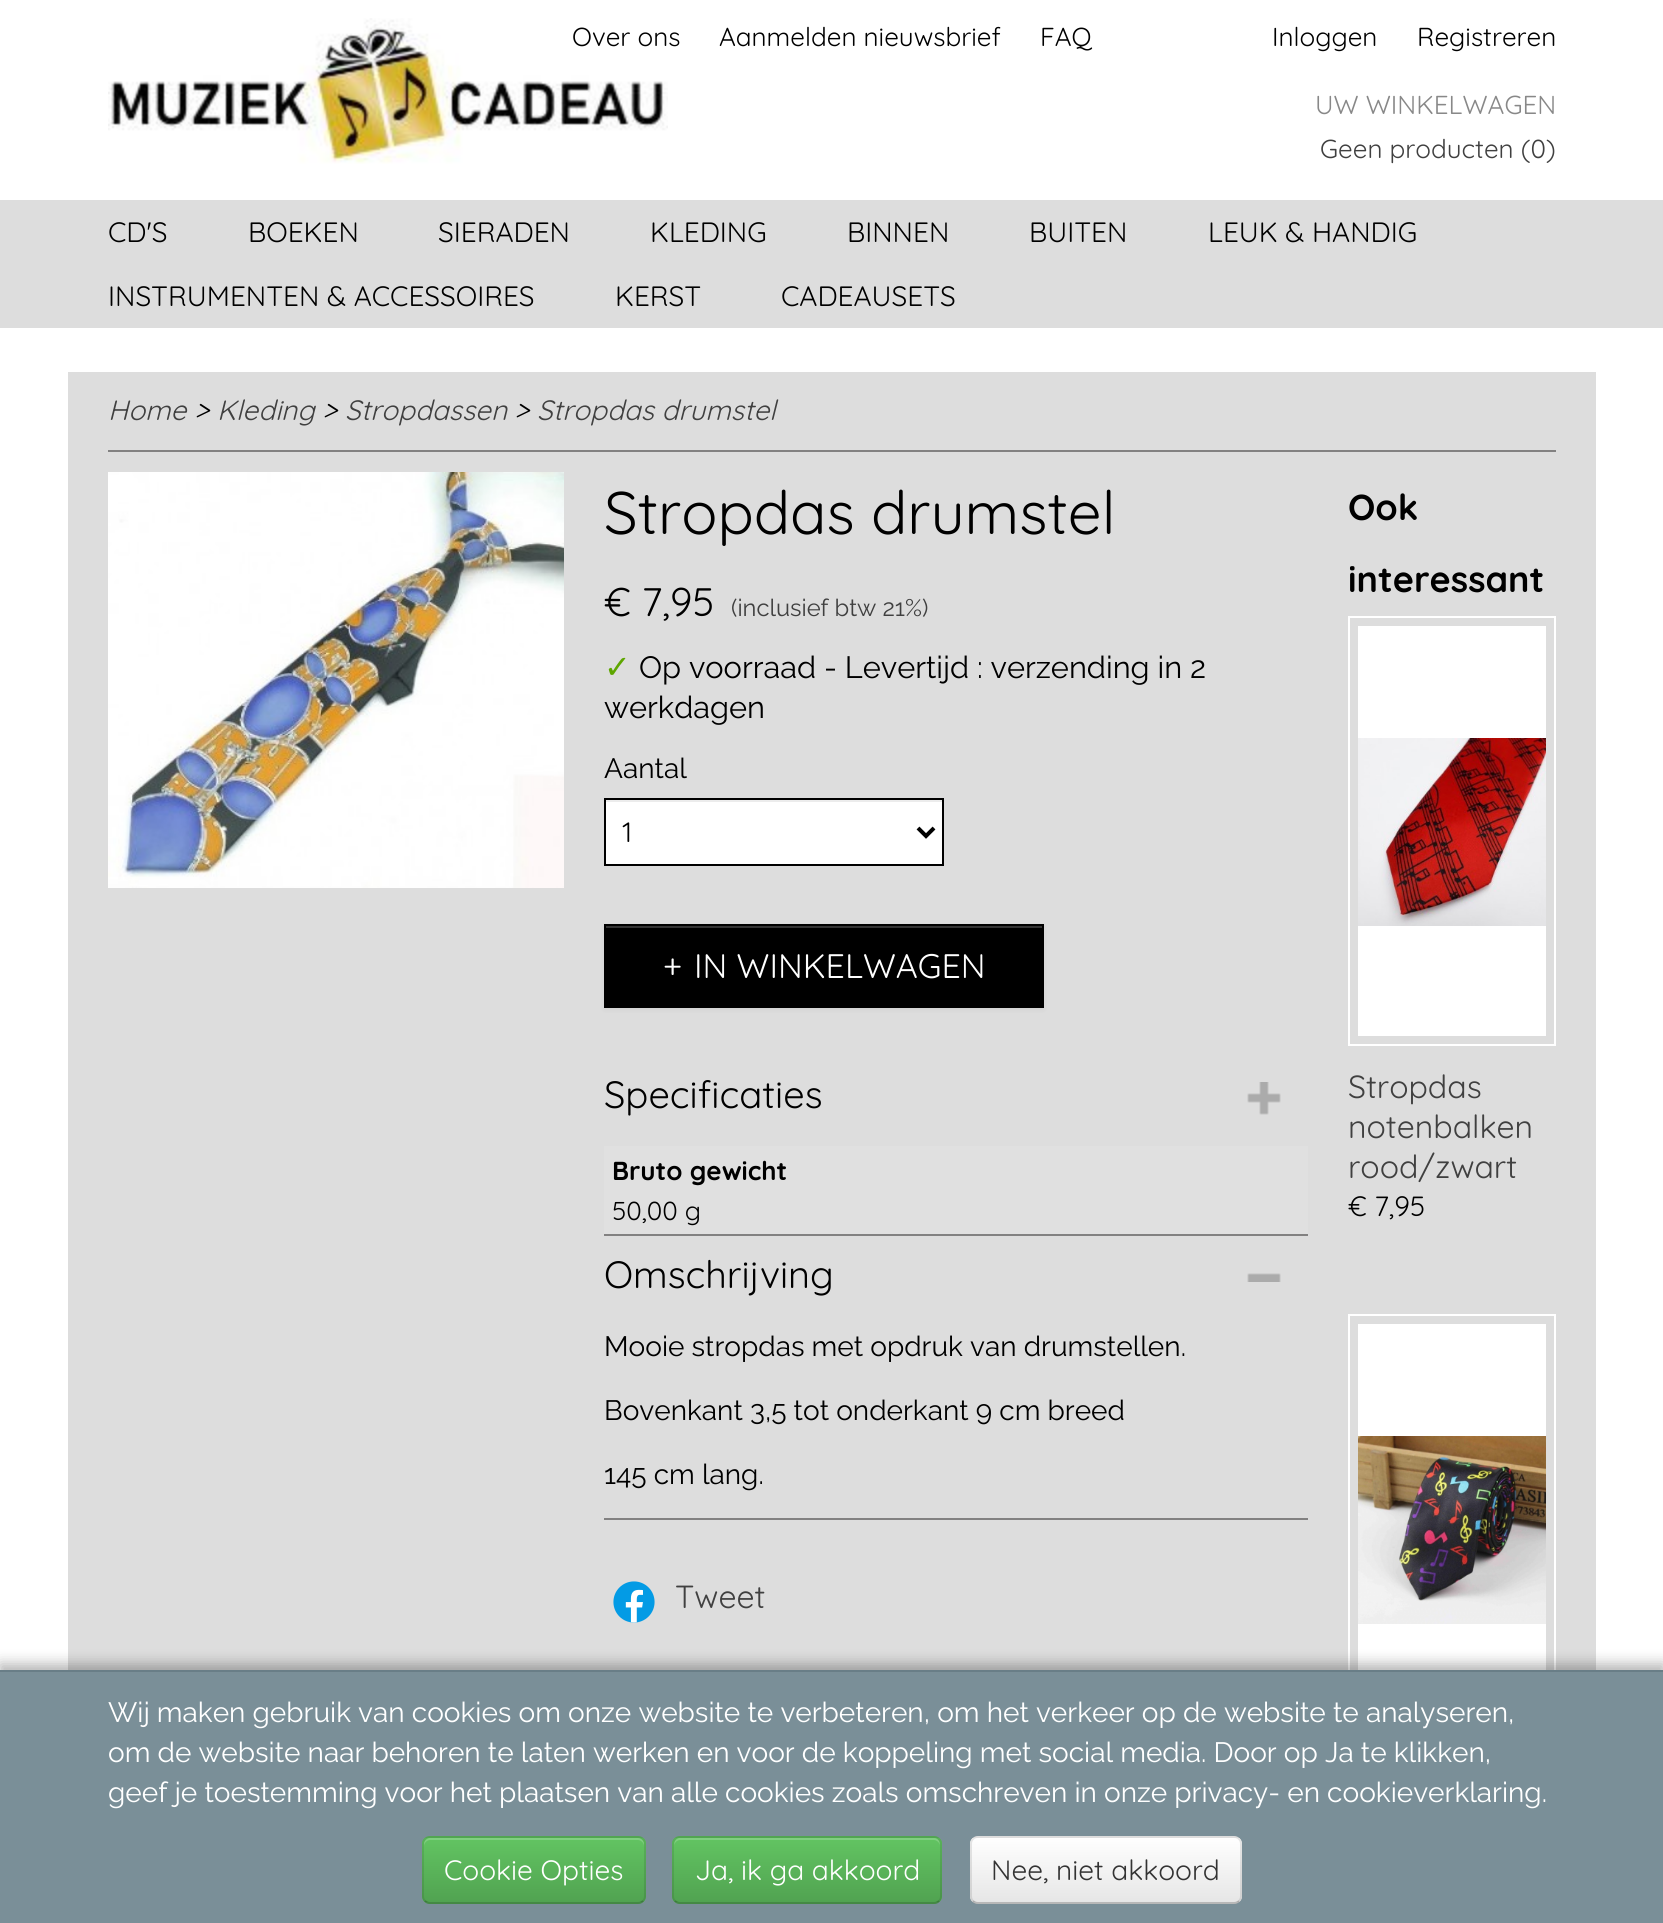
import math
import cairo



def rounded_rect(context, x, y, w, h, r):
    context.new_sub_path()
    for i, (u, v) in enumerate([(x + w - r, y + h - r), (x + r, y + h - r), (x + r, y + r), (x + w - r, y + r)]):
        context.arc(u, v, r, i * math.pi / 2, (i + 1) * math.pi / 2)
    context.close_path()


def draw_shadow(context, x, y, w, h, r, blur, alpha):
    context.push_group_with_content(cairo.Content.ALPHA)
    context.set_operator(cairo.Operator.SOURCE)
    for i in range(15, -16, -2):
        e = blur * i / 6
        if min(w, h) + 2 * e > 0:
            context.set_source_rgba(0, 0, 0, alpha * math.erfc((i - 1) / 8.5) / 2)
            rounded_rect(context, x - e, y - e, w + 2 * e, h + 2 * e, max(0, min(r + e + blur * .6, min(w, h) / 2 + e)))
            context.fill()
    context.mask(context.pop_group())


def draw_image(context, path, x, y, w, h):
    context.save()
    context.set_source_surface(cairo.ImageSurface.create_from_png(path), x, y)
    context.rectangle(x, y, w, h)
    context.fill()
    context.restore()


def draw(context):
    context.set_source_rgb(1, 1, 1)
    context.paint()
    draw_image(context, "images/1.png", 108, 18, 560, 146)
    context.set_source_rgb(221 / 255, 221 / 255, 221 / 255)
    context.rectangle(0, 200, 1663, 128)
    context.fill()
    context.rectangle(68, 372, 1528, 1298)
    context.fill()
    context.set_source_rgb(130 / 255, 129 / 255, 129 / 255)
    context.rectangle(108, 450, 1448, 2)
    context.fill()
    draw_image(context, "images/2.png", 108, 472, 456, 416)
    context.set_source_rgb(1, 1, 1)
    context.rectangle(606, 802, 336, 62)
    context.fill()
    context.set_source_rgb(236 / 255, 236 / 255, 236 / 255)
    context.rectangle(606, 800, 336, 2)
    context.fill()
    context.rectangle(605, 799, 338, 66)
    context.set_source_rgb(0, 0, 0)
    context.stroke()
    context.new_path()
    context.move_to(918, 828)
    context.line_to(926, 836)
    context.line_to(934, 828)
    context.set_line_width(4)
    context.stroke()
    context.set_source_rgb(0, 0, 0)
    draw_shadow(context, 604, 926, 440, 84, 0, 2, 0.05)
    context.set_source_rgb(0, 0, 0)
    context.rectangle(604, 924, 440, 84)
    context.fill()
    context.set_source_rgb(51 / 255, 51 / 255, 51 / 255)
    context.rectangle(606, 926, 436, 2)
    context.fill()
    context.set_source_rgb(130 / 255, 129 / 255, 129 / 255)
    context.rectangle(604, 1234, 704, 2)
    context.fill()
    draw_image(context, "images/3.png", 1247, 1082, 34, 33)
    context.set_source_rgb(224 / 255, 224 / 255, 224 / 255)
    context.rectangle(604, 1146, 704, 88)
    context.fill()
    context.set_source_rgb(130 / 255, 129 / 255, 129 / 255)
    context.rectangle(604, 1518, 704, 2)
    context.fill()
    draw_image(context, "images/4.png", 1247, 1273, 34, 9)
    draw_image(context, "images/5.png", 613, 1581, 42, 42)
    context.rectangle(1349, 617, 206, 428)
    context.set_source_rgb(1, 1, 1)
    context.set_line_width(2)
    context.stroke()
    context.rectangle(1358, 626, 188, 410)
    context.fill()
    draw_image(context, "images/6.png", 1358, 738, 188, 188)
    context.rectangle(1349, 1315, 206, 428)
    context.stroke()
    context.rectangle(1358, 1324, 188, 346)
    context.fill()
    draw_image(context, "images/7.png", 1358, 1436, 188, 188)
    context.set_source_rgb(0, 0, 0)
    draw_shadow(context, 0, 1664, 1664, 254, 0, 7, 0.3)
    context.set_source_rgb(122 / 255, 143 / 255, 152 / 255)
    context.rectangle(0, 1672, 1663, 251)
    context.fill()
    context.set_source_rgb(105 / 255, 126 / 255, 135 / 255)
    context.rectangle(0, 1670, 1663, 2)
    context.fill()
    context.set_source_rgb(91 / 255, 183 / 255, 91 / 255)
    rounded_rect(context, 422, 1836, 224, 68, 8)
    context.fill()
    context.save()
    rounded_rect(context, 422, 1836, 224, 68, 8)
    context.clip()
    gradient = cairo.LinearGradient(534, 1838, 534, 1902)
    gradient.add_color_stop_rgba(0, 98 / 255, 196 / 255, 98 / 255, 1)
    gradient.add_color_stop_rgba(1, 81 / 255, 163 / 255, 81 / 255, 1)
    context.set_source(gradient)
    context.rectangle(422, 1838, 224, 64)
    context.fill()
    context.restore()
    context.set_source_rgba(1, 1, 1, 0.2)
    context.new_path()
    context.move_to(430, 1840)
    context.line_to(638, 1840)
    context.curve_to(641, 1840, 644, 1843, 644, 1846)
    context.line_to(644, 1844)
    context.curve_to(644, 1841, 641, 1838, 638, 1838)
    context.line_to(430, 1838)
    context.curve_to(427, 1838, 424, 1841, 424, 1844)
    context.line_to(424, 1846)
    context.curve_to(424, 1843, 427, 1840, 430, 1840)
    context.close_path()
    context.fill()
    context.new_path()
    context.move_to(643, 1901)
    context.curve_to(641.5, 1902.5, 640, 1903, 638, 1903)
    context.line_to(430, 1903)
    context.curve_to(428, 1903, 426.5, 1902.5, 425, 1901)
    context.set_source_rgba(0, 0, 0, 0.25)
    context.stroke()
    context.new_path()
    context.move_to(425, 1901)
    context.curve_to(423.5, 1899.5, 423, 1898, 423, 1896)
    context.line_to(423, 1844)
    context.curve_to(423, 1842, 423.5, 1840.5, 425, 1839)
    context.curve_to(426.5, 1837.5, 428, 1837, 430, 1837)
    context.line_to(638, 1837)
    context.curve_to(640, 1837, 641.5, 1837.5, 643, 1839)
    context.curve_to(644.5, 1840.5, 645, 1842, 645, 1844)
    context.line_to(645, 1896)
    context.curve_to(645, 1898, 644.5, 1899.5, 643, 1901)
    context.set_source_rgba(0, 0, 0, 0.1)
    context.stroke()
    context.set_source_rgb(91 / 255, 183 / 255, 91 / 255)
    rounded_rect(context, 672, 1836, 270, 68, 8)
    context.fill()
    context.save()
    rounded_rect(context, 672, 1836, 270, 68, 8)
    context.clip()
    gradient = cairo.LinearGradient(807, 1838, 807, 1902)
    gradient.add_color_stop_rgba(0, 98 / 255, 196 / 255, 98 / 255, 1)
    gradient.add_color_stop_rgba(1, 81 / 255, 163 / 255, 81 / 255, 1)
    context.set_source(gradient)
    context.rectangle(672, 1838, 270, 64)
    context.fill()
    context.restore()
    context.set_source_rgb(129 / 255, 207 / 255, 129 / 255)
    context.new_path()
    context.move_to(680, 1840)
    context.line_to(934, 1840)
    context.curve_to(937, 1840, 940, 1843, 940, 1846)
    context.curve_to(940, 1843, 939, 1839, 935, 1838)
    context.line_to(679, 1838)
    context.curve_to(675, 1839, 674, 1843, 674, 1846)
    context.curve_to(674, 1843, 677, 1840, 680, 1840)
    context.close_path()
    context.fill()
    context.new_path()
    context.move_to(939, 1901)
    context.curve_to(937.5, 1902.5, 936, 1903, 934, 1903)
    context.line_to(680, 1903)
    context.curve_to(678, 1903, 676.5, 1902.5, 675, 1901)
    context.set_source_rgba(0, 0, 0, 0.25)
    context.stroke()
    context.new_path()
    context.move_to(675, 1901)
    context.curve_to(673.5, 1899.5, 673, 1898, 673, 1896)
    context.line_to(673, 1844)
    context.curve_to(673, 1842, 673.5, 1840.5, 675, 1839)
    context.curve_to(676.5, 1837.5, 678, 1837, 680, 1837)
    context.line_to(934, 1837)
    context.curve_to(936, 1837, 937.5, 1837.5, 939, 1839)
    context.curve_to(940.5, 1840.5, 941, 1842, 941, 1844)
    context.line_to(941, 1896)
    context.curve_to(941, 1898, 940.5, 1899.5, 939, 1901)
    context.set_source_rgba(0, 0, 0, 0.1)
    context.stroke()
    context.set_source_rgb(245 / 255, 245 / 255, 245 / 255)
    rounded_rect(context, 970, 1836, 272, 68, 8)
    context.fill()
    context.save()
    rounded_rect(context, 970, 1836, 272, 68, 8)
    context.clip()
    gradient = cairo.LinearGradient(1106, 1838, 1106, 1902)
    gradient.add_color_stop_rgba(0, 1, 1, 1, 1)
    gradient.add_color_stop_rgba(1, 230 / 255, 230 / 255, 230 / 255, 1)
    context.set_source(gradient)
    context.rectangle(970, 1838, 272, 64)
    context.fill()
    context.restore()
    context.new_path()
    context.move_to(1239, 1901)
    context.curve_to(1237.5, 1902.5, 1236, 1903, 1234, 1903)
    context.line_to(978, 1903)
    context.curve_to(976, 1903, 974.5, 1902.5, 973, 1901)
    context.set_source_rgba(0, 0, 0, 0.25)
    context.stroke()
    context.new_path()
    context.move_to(973, 1901)
    context.curve_to(971.5, 1899.5, 971, 1898, 971, 1896)
    context.line_to(971, 1844)
    context.curve_to(971, 1842, 971.5, 1840.5, 973, 1839)
    context.curve_to(974.5, 1837.5, 976, 1837, 978, 1837)
    context.line_to(1234, 1837)
    context.curve_to(1236, 1837, 1237.5, 1837.5, 1239, 1839)
    context.curve_to(1240.5, 1840.5, 1241, 1842, 1241, 1844)
    context.line_to(1241, 1896)
    context.curve_to(1241, 1898, 1240.5, 1899.5, 1239, 1901)
    context.set_source_rgba(0, 0, 0, 0.1)
    context.stroke()
    context.select_font_face("Quicksand")
    context.set_font_size(26)
    context.set_source_rgb(0, 0, 0)
    context.move_to(572, 46)
    context.show_text("Over ons")
    context.move_to(719, 46)
    context.show_text("Aanmelden nieuwsbrief")
    context.move_to(1040, 46)
    context.show_text("FAQ")
    context.move_to(1272, 46)
    context.show_text("Inloggen")
    context.move_to(1417, 46)
    context.show_text("Registreren")
    context.set_source_rgb(136 / 255, 136 / 255, 136 / 255)
    context.move_to(1315, 114)
    context.show_text("UW WINKELWAGEN")
    context.set_source_rgb(64 / 255, 64 / 255, 64 / 255)
    context.move_to(1320, 158)
    context.show_text("Geen producten (0)")
    context.set_font_size(28)
    context.set_source_rgb(0, 0, 0)
    context.move_to(108, 242)
    context.show_text("CD'S")
    context.move_to(248, 242)
    context.show_text("BOEKEN")
    context.move_to(438, 242)
    context.show_text("SIERADEN")
    context.move_to(650, 242)
    context.show_text("KLEDING")
    context.move_to(847, 242)
    context.show_text("BINNEN")
    context.move_to(1029, 242)
    context.show_text("BUITEN")
    context.move_to(1208, 242)
    context.show_text("LEUK & HANDIG")
    context.move_to(108, 306)
    context.show_text("INSTRUMENTEN & ACCESSOIRES")
    context.move_to(615, 306)
    context.show_text("KERST")
    context.move_to(781, 306)
    context.show_text("CADEAUSETS")
    context.select_font_face("Quicksand", cairo.FontSlant.ITALIC)
    context.set_source_rgb(64 / 255, 64 / 255, 64 / 255)
    context.move_to(108, 420)
    context.show_text("Home")
    context.set_source_rgb(0, 0, 0)
    context.move_to(194, 420)
    context.show_text(">")
    context.set_source_rgb(64 / 255, 64 / 255, 64 / 255)
    context.move_to(217, 420)
    context.show_text("Kleding")
    context.set_source_rgb(0, 0, 0)
    context.move_to(322, 420)
    context.show_text(">")
    context.set_source_rgb(64 / 255, 64 / 255, 64 / 255)
    context.move_to(345, 420)
    context.show_text("Stropdassen")
    context.set_source_rgb(0, 0, 0)
    context.move_to(514, 420)
    context.show_text(">")
    context.set_source_rgb(64 / 255, 64 / 255, 64 / 255)
    context.move_to(537, 420)
    context.show_text("Stropdas drumstel")
    context.select_font_face("Quicksand")
    context.set_font_size(60)
    context.set_source_rgb(0, 0, 0)
    context.move_to(604, 534)
    context.show_text("Stropdas drumstel")
    context.set_font_size(40)
    context.move_to(604, 616)
    context.show_text("€ 7,95")
    context.select_font_face("Raleway")
    context.set_font_size(23.75)
    context.set_source_rgb(64 / 255, 64 / 255, 64 / 255)
    context.move_to(731, 616)
    context.show_text("(inclusief btw 21%)")
    context.select_font_face("DejaVu Sans")
    context.set_font_size(32)
    context.set_source_rgb(94 / 255, 166 / 255, 0)
    context.move_to(604, 678)
    context.show_text("✓")
    context.select_font_face("Raleway")
    context.set_font_size(30.75)
    context.set_source_rgb(0, 0, 0)
    context.move_to(639, 678)
    context.show_text("Op voorraad - Levertijd : verzending in 2")
    context.move_to(604, 718)
    context.show_text("werkdagen")
    context.set_font_size(28)
    context.move_to(604, 778)
    context.show_text("Aantal")
    context.select_font_face("Quicksand")
    context.move_to(622, 842)
    context.show_text("1")
    context.set_font_size(34)
    context.set_source_rgb(1, 1, 1)
    context.move_to(663, 978)
    context.show_text("+")
    context.move_to(694, 978)
    context.show_text("IN WINKELWAGEN")
    context.set_font_size(38)
    context.set_source_rgb(0, 0, 0)
    context.move_to(604, 1108)
    context.show_text("Specificaties")
    context.select_font_face("Quicksand", cairo.FontSlant.NORMAL, cairo.FontWeight.BOLD)
    context.set_font_size(26)
    context.move_to(612, 1180)
    context.show_text("Bruto gewicht")
    context.select_font_face("Quicksand")
    context.move_to(612, 1220)
    context.show_text("50,00 g")
    context.set_font_size(38)
    context.move_to(604, 1288)
    context.show_text("Omschrijving")
    context.select_font_face("Raleway")
    context.set_font_size(28)
    context.move_to(604, 1356)
    context.show_text("Mooie stropdas met opdruk van drumstellen.")
    context.move_to(604, 1420)
    context.show_text("Bovenkant 3,5 tot onderkant 9 cm breed")
    context.move_to(604, 1484)
    context.show_text("145 cm lang.")
    context.select_font_face("Quicksand")
    context.set_font_size(32)
    context.set_source_rgb(64 / 255, 64 / 255, 64 / 255)
    context.move_to(675, 1608)
    context.show_text("Tweet")
    context.select_font_face("Quicksand", cairo.FontSlant.NORMAL, cairo.FontWeight.BOLD)
    context.set_font_size(36)
    context.set_source_rgb(0, 0, 0)
    context.move_to(1348, 520)
    context.show_text("Ook")
    context.move_to(1348, 592)
    context.show_text("interessant")
    context.select_font_face("Quicksand")
    context.set_font_size(32)
    context.set_source_rgb(64 / 255, 64 / 255, 64 / 255)
    context.move_to(1348, 1098)
    context.show_text("Stropdas")
    context.move_to(1348, 1138)
    context.show_text("notenbalken")
    context.move_to(1348, 1178)
    context.show_text("rood/zwart")
    context.set_font_size(28)
    context.set_source_rgb(0, 0, 0)
    context.move_to(1348, 1216)
    context.show_text("€ 7,95")
    context.select_font_face("Raleway")
    context.set_source_rgb(1, 1, 1)
    context.move_to(108, 1722)
    context.show_text("Wij maken gebruik van cookies om onze website te verbeteren, om het verkeer op de website te analyseren,")
    context.move_to(108, 1762)
    context.show_text("om de website naar behoren te laten werken en voor de koppeling met social media. Door op Ja te klikken,")
    context.move_to(108, 1802)
    context.show_text("geef je toestemming voor het plaatsen van alle cookies zoals omschreven in onze privacy- en cookieverklaring.")
    context.select_font_face("Quicksand")
    context.move_to(444, 1880)
    context.show_text("Cookie Opties")
    context.move_to(695, 1880)
    context.show_text("Ja, ik ga akkoord")
    context.set_source_rgb(51 / 255, 51 / 255, 51 / 255)
    context.move_to(991, 1880)
    context.show_text("Nee, niet akkoord")


surface = cairo.ImageSurface(cairo.Format.RGB24, 1663, 1923)
context = cairo.Context(surface)
options = cairo.FontOptions()
options.set_hint_metrics(cairo.HintMetrics.OFF)
options.set_hint_style(cairo.HintStyle.NONE)
context.set_font_options(options)
context.set_miter_limit(4)
draw(context)
surface.write_to_png("out.png")
